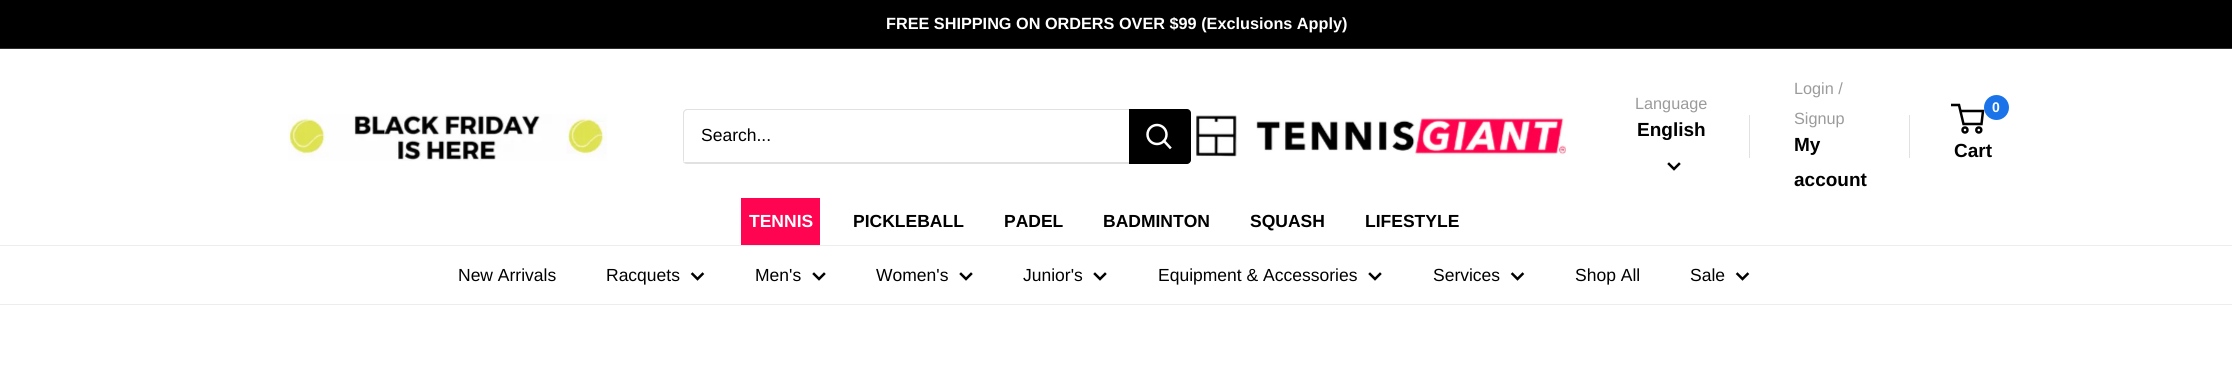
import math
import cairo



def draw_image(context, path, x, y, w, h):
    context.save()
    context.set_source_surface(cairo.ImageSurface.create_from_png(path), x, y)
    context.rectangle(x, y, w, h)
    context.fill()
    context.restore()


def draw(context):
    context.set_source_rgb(1, 1, 1)
    context.paint()
    context.set_source_rgb(0, 0, 0)
    context.rectangle(0, 0, 2232, 48)
    context.fill()
    context.set_source_rgb(47 / 255, 47 / 255, 47 / 255)
    context.rectangle(0, 48, 2232, 1)
    context.fill()
    draw_image(context, "images/1.png", 288, 114, 319, 47)
    context.set_source_rgb(225 / 255, 225 / 255, 225 / 255)
    context.new_path()
    context.move_to(683, 162)
    context.curve_to(684, 163, 685, 164, 687, 164)
    context.line_to(1187, 164)
    context.curve_to(1189, 164, 1191, 162, 1191, 160)
    context.line_to(1191, 113)
    context.curve_to(1191, 112, 1191, 111, 1190, 110)
    context.line_to(1190, 151)
    context.curve_to(1190, 155, 1192, 162, 1186, 162)
    context.close_path()
    context.fill()
    context.new_path()
    context.move_to(688, 110)
    context.line_to(1190, 110)
    context.curve_to(1189, 109, 1188, 109, 1187, 109)
    context.line_to(687, 109)
    context.curve_to(685, 109, 683, 111, 683, 113)
    context.line_to(683, 160)
    context.curve_to(683, 161, 684, 162, 684, 163)
    context.line_to(684, 161)
    context.line_to(684, 114)
    context.curve_to(684, 112, 685, 110, 688, 110)
    context.close_path()
    context.fill()
    context.set_source_rgb(0, 0, 0)
    context.new_path()
    context.move_to(1129, 109)
    context.line_to(1187, 109)
    context.curve_to(1189, 109, 1191, 111, 1191, 113)
    context.line_to(1191, 160)
    context.curve_to(1191, 162, 1189, 164, 1187, 164)
    context.line_to(1129, 164)
    context.close_path()
    context.fill()
    context.new_path()
    context.move_to(1170, 147.5)
    context.line_to(1164, 141)
    context.set_source_rgb(1, 1, 1)
    context.set_line_width(2.5)
    context.set_line_cap(cairo.LineCap.SQUARE)
    context.stroke()
    context.arc(1157, 134.5, 9.5, 0, 2 * math.pi)
    context.set_line_cap(cairo.LineCap.BUTT)
    context.stroke()
    draw_image(context, "images/2.png", 1196, 115, 370, 42)
    context.new_path()
    context.move_to(1679, 164)
    context.line_to(1674, 169)
    context.line_to(1669, 164)
    context.set_source_rgb(0, 0, 0)
    context.set_line_cap(cairo.LineCap.SQUARE)
    context.stroke()
    context.set_source_rgb(225 / 255, 225 / 255, 225 / 255)
    context.rectangle(1749, 115, 1, 43)
    context.fill()
    context.rectangle(1909, 115, 1, 43)
    context.fill()
    context.arc(1965, 130, 2.5, 0, 2 * math.pi)
    context.set_source_rgb(0, 0, 0)
    context.set_line_cap(cairo.LineCap.BUTT)
    context.stroke()
    context.arc(1978.8, 130, 2.5, 0, 2 * math.pi)
    context.stroke()
    context.new_path()
    context.move_to(1960.5, 111)
    context.line_to(1983, 111)
    context.line_to(1981.5, 124)
    context.line_to(1963.5, 124)
    context.line_to(1959, 105)
    context.line_to(1951, 105)
    context.stroke()
    context.set_source_rgb(26 / 255, 115 / 255, 232 / 255)
    context.arc(1996.5, 107.5, 12.5, 0, 2 * math.pi)
    context.fill()
    context.set_source_rgb(237 / 255, 237 / 255, 237 / 255)
    context.rectangle(0, 245, 2232, 1)
    context.fill()
    context.set_source_rgb(1, 4 / 255, 81 / 255)
    context.rectangle(741, 198, 79, 47)
    context.fill()
    context.set_source_rgb(237 / 255, 237 / 255, 237 / 255)
    context.rectangle(0, 304, 2232, 1)
    context.fill()
    context.new_path()
    context.move_to(702.5, 274)
    context.line_to(697.5, 279)
    context.line_to(692.5, 274)
    context.set_source_rgb(0, 0, 0)
    context.set_line_cap(cairo.LineCap.SQUARE)
    context.stroke()
    context.new_path()
    context.move_to(824, 274)
    context.line_to(819, 279)
    context.line_to(814, 274)
    context.stroke()
    context.new_path()
    context.move_to(971, 274)
    context.line_to(966, 279)
    context.line_to(961, 274)
    context.stroke()
    context.new_path()
    context.move_to(1105, 274)
    context.line_to(1100, 279)
    context.line_to(1095, 274)
    context.stroke()
    context.new_path()
    context.move_to(1380, 274)
    context.line_to(1375, 279)
    context.line_to(1370, 274)
    context.stroke()
    context.new_path()
    context.move_to(1522.5, 274)
    context.line_to(1517.5, 279)
    context.line_to(1512.5, 274)
    context.stroke()
    context.new_path()
    context.move_to(1747.5, 274)
    context.line_to(1742.5, 279)
    context.line_to(1737.5, 274)
    context.stroke()
    context.select_font_face("Liberation Sans", cairo.FontSlant.NORMAL, cairo.FontWeight.BOLD)
    context.set_font_size(16.25)
    context.set_source_rgb(1, 1, 1)
    context.move_to(886, 29)
    context.show_text("FREE SHIPPING ON ORDERS OVER $99 (Exclusions Apply)")
    context.select_font_face("Liberation Sans")
    context.set_font_size(17.5)
    context.set_source_rgb(0, 0, 0)
    context.move_to(701, 141)
    context.show_text("Search...")
    context.set_font_size(16.25)
    context.set_source_rgb(155 / 255, 155 / 255, 155 / 255)
    context.move_to(1635, 109)
    context.show_text("Language")
    context.select_font_face("Liberation Sans", cairo.FontSlant.NORMAL, cairo.FontWeight.BOLD)
    context.set_font_size(19)
    context.set_source_rgb(0, 0, 0)
    context.move_to(1637, 136)
    context.show_text("English")
    context.select_font_face("Liberation Sans")
    context.set_font_size(16.25)
    context.set_source_rgb(155 / 255, 155 / 255, 155 / 255)
    context.move_to(1794, 94)
    context.show_text("Login /")
    context.move_to(1794, 124)
    context.show_text("Signup")
    context.select_font_face("Liberation Sans", cairo.FontSlant.NORMAL, cairo.FontWeight.BOLD)
    context.set_font_size(19)
    context.set_source_rgb(0, 0, 0)
    context.move_to(1794, 151)
    context.show_text("My")
    context.move_to(1794, 186)
    context.show_text("account")
    context.set_font_size(14)
    context.set_source_rgb(1, 1, 1)
    context.move_to(1992, 112)
    context.show_text("0")
    context.set_font_size(19)
    context.set_source_rgb(0, 0, 0)
    context.move_to(1954, 157)
    context.show_text("Cart")
    context.set_font_size(17.5)
    context.set_source_rgb(1, 1, 1)
    context.move_to(749, 227)
    context.show_text("TENNIS")
    context.set_source_rgb(0, 0, 0)
    context.move_to(853, 227)
    context.show_text("PICKLEBALL")
    context.move_to(1004, 227)
    context.show_text("PADEL")
    context.move_to(1103, 227)
    context.show_text("BADMINTON")
    context.move_to(1250, 227)
    context.show_text("SQUASH")
    context.move_to(1365, 227)
    context.show_text("LIFESTYLE")
    context.select_font_face("Liberation Sans")
    context.move_to(458, 281)
    context.show_text("New Arrivals")
    context.move_to(606, 281)
    context.show_text("Racquets")
    context.move_to(755, 281)
    context.show_text("Men's")
    context.move_to(876, 281)
    context.show_text("Women's")
    context.move_to(1023, 281)
    context.show_text("Junior's")
    context.move_to(1158, 281)
    context.show_text("Equipment & Accessories")
    context.move_to(1433, 281)
    context.show_text("Services")
    context.move_to(1575, 281)
    context.show_text("Shop All")
    context.move_to(1690, 281)
    context.show_text("Sale")


surface = cairo.ImageSurface(cairo.Format.RGB24, 2232, 370)
context = cairo.Context(surface)
options = cairo.FontOptions()
options.set_hint_metrics(cairo.HintMetrics.OFF)
options.set_hint_style(cairo.HintStyle.NONE)
context.set_font_options(options)
context.set_miter_limit(4)
draw(context)
surface.write_to_png("out.png")
